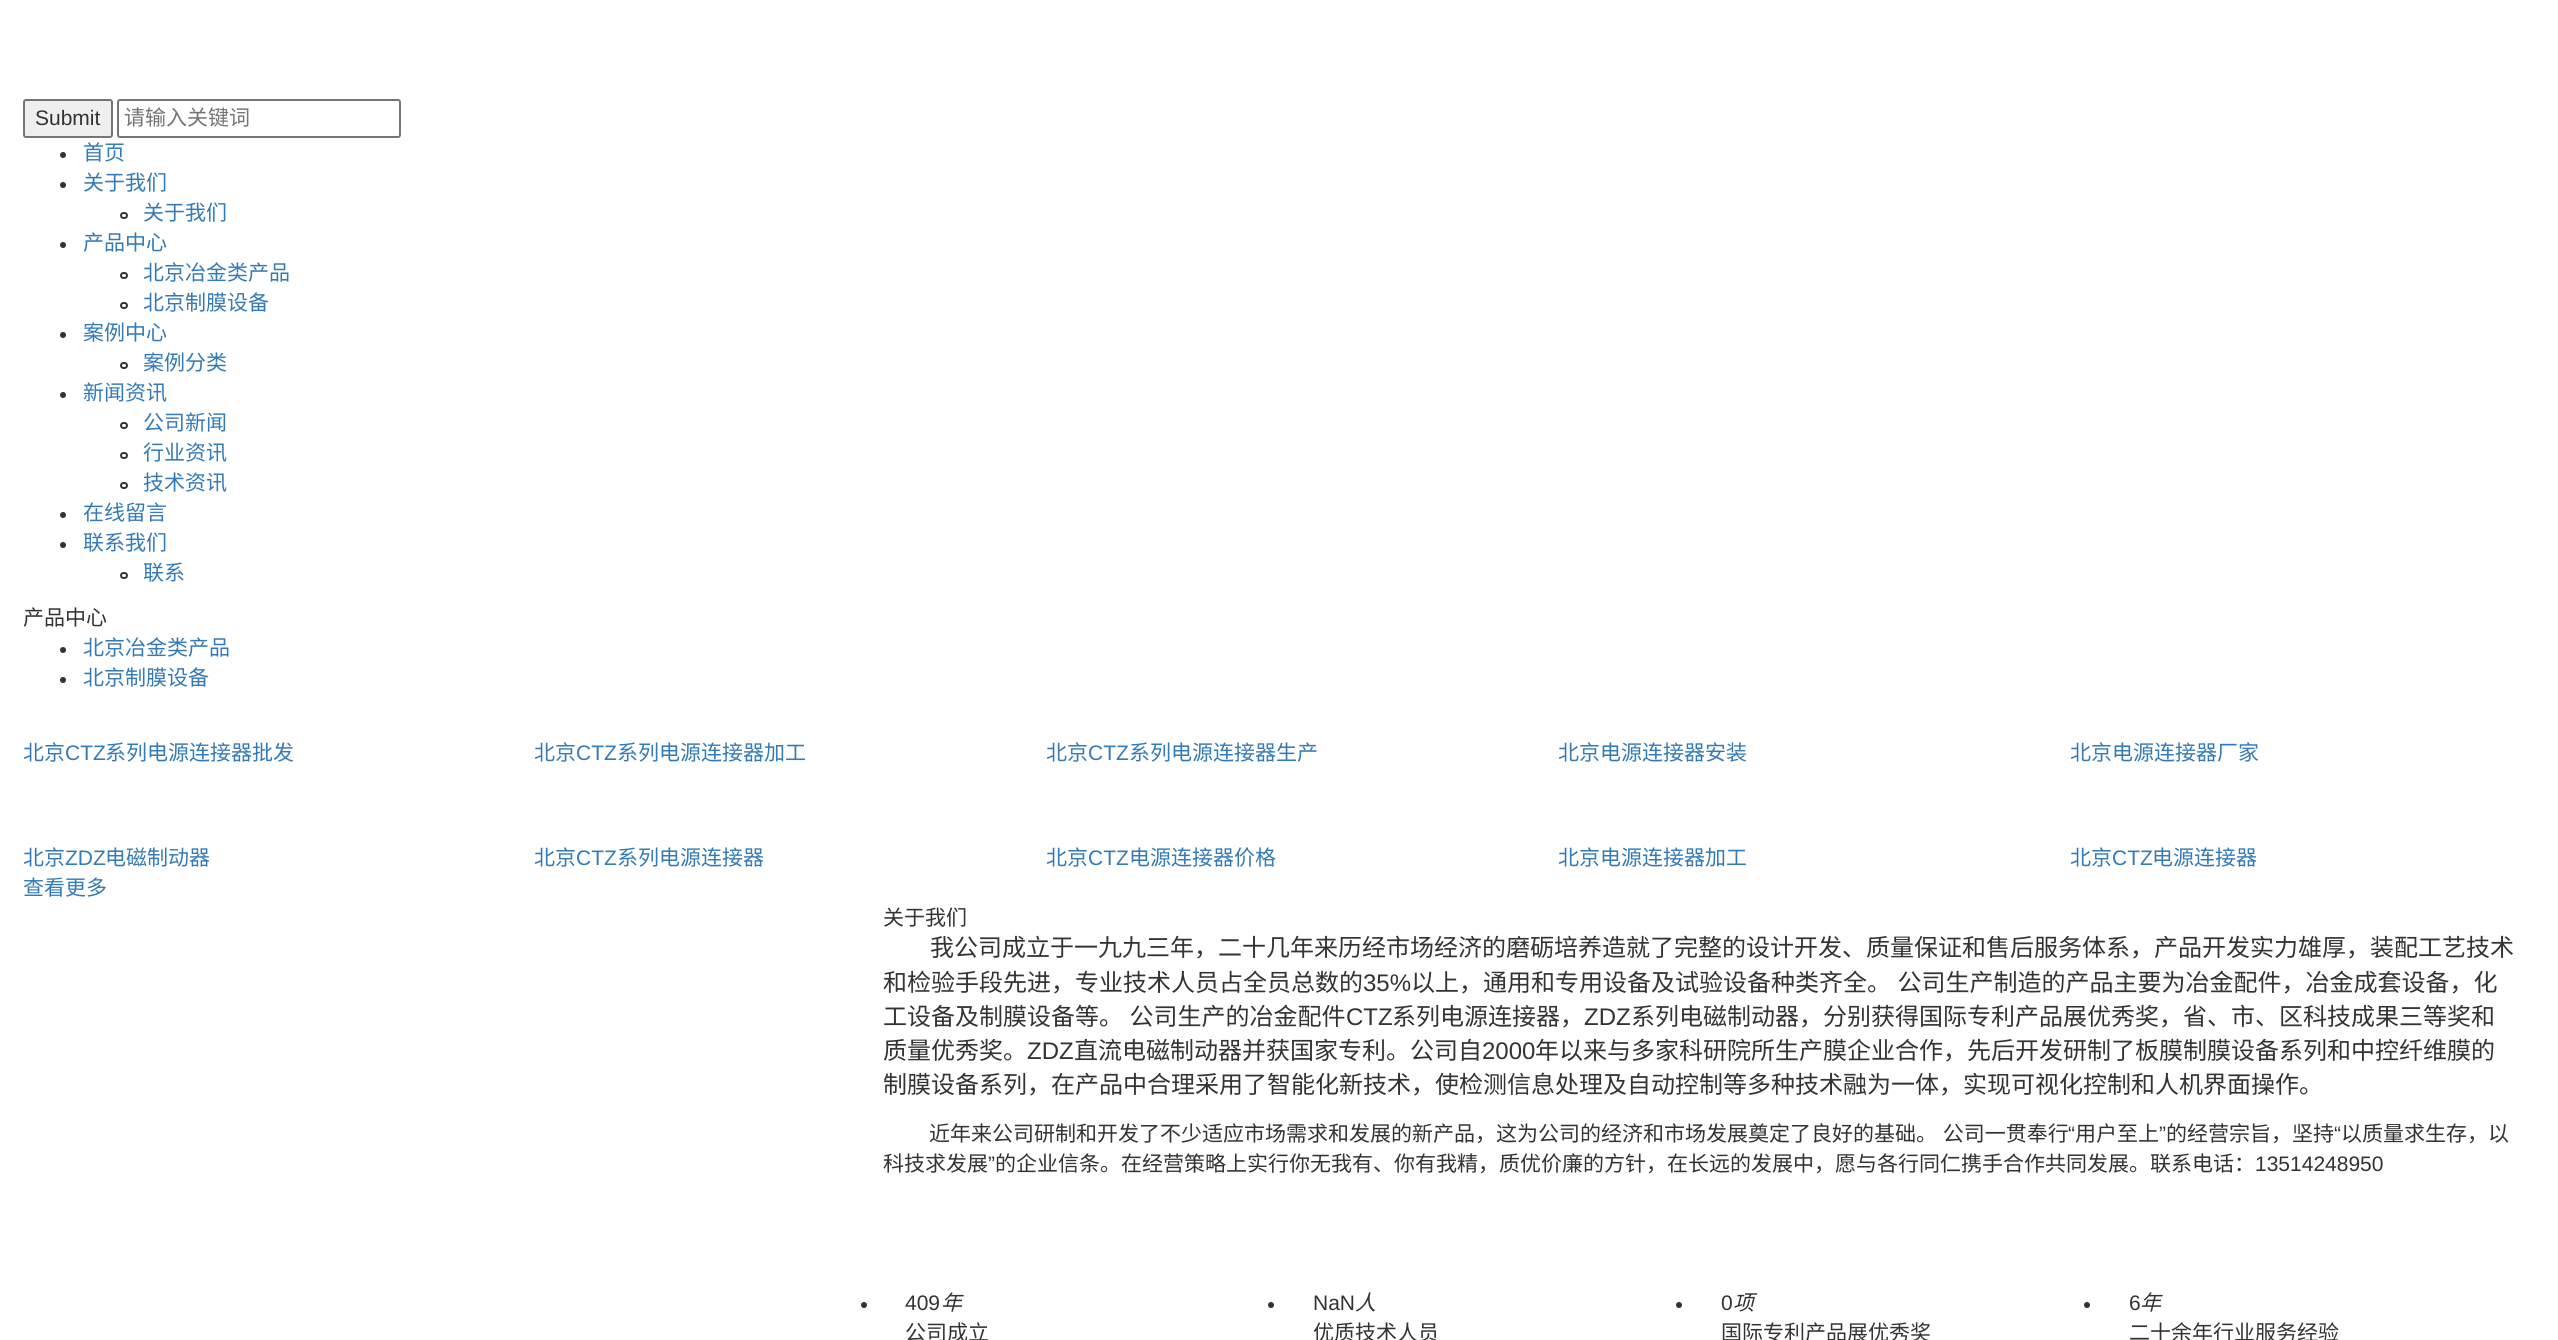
import math
import cairo



def draw_spaced(context, x, y, s, letter, word):
    context.move_to(x, y)
    for ch in s:
        context.show_text(ch)
        context.rel_move_to(letter + word * (ch == ' '), 0)


def rounded_rect(context, x, y, w, h, r):
    context.new_sub_path()
    for i, (u, v) in enumerate([(x + w - r, y + h - r), (x + r, y + h - r), (x + r, y + r), (x + w - r, y + r)]):
        context.arc(u, v, r, i * math.pi / 2, (i + 1) * math.pi / 2)
    context.close_path()


def draw(context):
    context.set_source_rgb(1, 1, 1)
    context.paint()
    context.set_source_rgb(239 / 255, 239 / 255, 239 / 255)
    rounded_rect(context, 24, 100, 88, 37, 2)
    context.fill_preserve()
    context.set_source_rgb(118 / 255, 118 / 255, 118 / 255)
    context.stroke()
    rounded_rect(context, 118, 100, 282, 37, 2)
    context.stroke()
    context.set_source_rgb(51 / 255, 51 / 255, 51 / 255)
    context.arc(63, 155, 3, 0, 2 * math.pi)
    context.fill()
    context.arc(63, 185, 3, 0, 2 * math.pi)
    context.fill()
    rounded_rect(context, 121, 213, 6, 5, 2.5)
    context.stroke()
    context.arc(63, 245, 3, 0, 2 * math.pi)
    context.fill()
    rounded_rect(context, 121, 273, 6, 5, 2.5)
    context.stroke()
    rounded_rect(context, 121, 303, 6, 5, 2.5)
    context.stroke()
    context.arc(63, 335, 3, 0, 2 * math.pi)
    context.fill()
    rounded_rect(context, 121, 363, 6, 5, 2.5)
    context.stroke()
    context.arc(63, 395, 3, 0, 2 * math.pi)
    context.fill()
    rounded_rect(context, 121, 423, 6, 5, 2.5)
    context.stroke()
    rounded_rect(context, 121, 453, 6, 5, 2.5)
    context.stroke()
    rounded_rect(context, 121, 483, 6, 5, 2.5)
    context.stroke()
    context.arc(63, 515, 3, 0, 2 * math.pi)
    context.fill()
    context.arc(63, 545, 3, 0, 2 * math.pi)
    context.fill()
    rounded_rect(context, 121, 573, 6, 5, 2.5)
    context.stroke()
    context.arc(63, 650, 3, 0, 2 * math.pi)
    context.fill()
    context.arc(63, 680, 3, 0, 2 * math.pi)
    context.fill()
    context.arc(864, 1305, 3, 0, 2 * math.pi)
    context.fill()
    context.arc(1271, 1305, 3, 0, 2 * math.pi)
    context.fill()
    context.arc(1679, 1305, 3, 0, 2 * math.pi)
    context.fill()
    context.arc(2087, 1305, 3, 0, 2 * math.pi)
    context.fill()
    context.select_font_face("Liberation Sans")
    context.set_font_size(21)
    context.move_to(35, 125)
    context.show_text("Submit")
    context.select_font_face("Noto Sans CJK SC")
    context.set_source_rgb(117 / 255, 117 / 255, 117 / 255)
    context.move_to(124, 125)
    context.show_text("请输入关键词")
    context.set_source_rgb(51 / 255, 122 / 255, 183 / 255)
    context.move_to(83, 160)
    context.show_text("首页")
    context.move_to(83, 190)
    context.show_text("关于我们")
    context.move_to(143, 220)
    context.show_text("关于我们")
    context.move_to(83, 250)
    context.show_text("产品中心")
    context.move_to(143, 280)
    context.show_text("北京冶金类产品")
    context.move_to(143, 310)
    context.show_text("北京制膜设备")
    context.move_to(83, 340)
    context.show_text("案例中心")
    context.move_to(143, 370)
    context.show_text("案例分类")
    context.move_to(83, 400)
    context.show_text("新闻资讯")
    context.move_to(143, 430)
    context.show_text("公司新闻")
    context.move_to(143, 460)
    context.show_text("行业资讯")
    context.move_to(143, 490)
    context.show_text("技术资讯")
    context.move_to(83, 520)
    context.show_text("在线留言")
    context.move_to(83, 550)
    context.show_text("联系我们")
    context.move_to(143, 580)
    context.show_text("联系")
    context.set_source_rgb(51 / 255, 51 / 255, 51 / 255)
    context.move_to(23, 625)
    context.show_text("产品中心")
    context.set_source_rgb(51 / 255, 122 / 255, 183 / 255)
    context.move_to(83, 655)
    context.show_text("北京冶金类产品")
    context.move_to(83, 685)
    context.show_text("北京制膜设备")
    context.move_to(23, 760)
    context.show_text("北京")
    context.select_font_face("Liberation Sans")
    context.move_to(65, 760)
    context.show_text("CTZ")
    context.select_font_face("Noto Sans CJK SC")
    context.move_to(105, 760)
    context.show_text("系列电源连接器批发")
    context.move_to(534, 760)
    context.show_text("北京")
    context.select_font_face("Liberation Sans")
    context.move_to(576, 760)
    context.show_text("CTZ")
    context.select_font_face("Noto Sans CJK SC")
    context.move_to(617, 760)
    context.show_text("系列电源连接器加工")
    context.move_to(1046, 760)
    context.show_text("北京")
    context.select_font_face("Liberation Sans")
    context.move_to(1088, 760)
    context.show_text("CTZ")
    context.select_font_face("Noto Sans CJK SC")
    context.move_to(1129, 760)
    context.show_text("系列电源连接器生产")
    context.move_to(1558, 760)
    context.show_text("北京电源连接器安装")
    context.move_to(2070, 760)
    context.show_text("北京电源连接器厂家")
    context.move_to(23, 865)
    context.show_text("北京")
    context.select_font_face("Liberation Sans")
    context.move_to(65, 865)
    context.show_text("ZDZ")
    context.select_font_face("Noto Sans CJK SC")
    context.move_to(105, 865)
    context.show_text("电磁制动器")
    context.move_to(534, 865)
    context.show_text("北京")
    context.select_font_face("Liberation Sans")
    context.move_to(576, 865)
    context.show_text("CTZ")
    context.select_font_face("Noto Sans CJK SC")
    context.move_to(617, 865)
    context.show_text("系列电源连接器")
    context.move_to(1046, 865)
    context.show_text("北京")
    context.select_font_face("Liberation Sans")
    context.move_to(1088, 865)
    context.show_text("CTZ")
    context.select_font_face("Noto Sans CJK SC")
    context.move_to(1129, 865)
    context.show_text("电源连接器价格")
    context.move_to(1558, 865)
    context.show_text("北京电源连接器加工")
    context.move_to(2070, 865)
    context.show_text("北京")
    context.select_font_face("Liberation Sans")
    context.move_to(2112, 865)
    context.show_text("CTZ")
    context.select_font_face("Noto Sans CJK SC")
    context.move_to(2152, 865)
    context.show_text("电源连接器")
    context.move_to(23, 895)
    context.show_text("查看更多")
    context.set_source_rgb(51 / 255, 51 / 255, 51 / 255)
    context.move_to(883, 925)
    context.show_text("关于我们")
    context.set_font_size(24)
    context.move_to(930, 956)
    context.show_text("我公司成立于一九九三年，二十几年来历经市场经济的磨砺培养造就了完整的设计开发、质量保证和售后服务体系，产品开发实力雄厚，装配工艺技术")
    context.move_to(883, 991)
    context.show_text("和检验手段先进，专业技术人员占全员总数的")
    context.select_font_face("Liberation Sans")
    context.move_to(1363, 991)
    context.show_text("35%")
    context.select_font_face("Noto Sans CJK SC")
    draw_spaced(context, 1411, 991, "以上，通用和专用设备及试验设备种类齐全。 公司生产制造的产品主要为冶金配件，冶金成套设备，化", 0, 1)
    draw_spaced(context, 883, 1025, "工设备及制膜设备等。 公司生产的冶金配件", 0, 1)
    context.select_font_face("Liberation Sans")
    context.move_to(1346, 1025)
    context.show_text("CTZ")
    context.select_font_face("Noto Sans CJK SC")
    context.move_to(1392, 1025)
    context.show_text("系列电源连接器，")
    context.select_font_face("Liberation Sans")
    context.move_to(1584, 1025)
    context.show_text("ZDZ")
    context.select_font_face("Noto Sans CJK SC")
    context.move_to(1631, 1025)
    context.show_text("系列电磁制动器，分别获得国际专利产品展优秀奖，省、市、区科技成果三等奖和")
    context.move_to(883, 1059)
    context.show_text("质量优秀奖。")
    context.select_font_face("Liberation Sans")
    context.move_to(1027, 1059)
    context.show_text("ZDZ")
    context.select_font_face("Noto Sans CJK SC")
    context.move_to(1074, 1059)
    context.show_text("直流电磁制动器并获国家专利。公司自")
    context.select_font_face("Liberation Sans")
    context.move_to(1482, 1059)
    context.show_text("2000")
    context.select_font_face("Noto Sans CJK SC")
    context.move_to(1535, 1059)
    context.show_text("年以来与多家科研院所生产膜企业合作，先后开发研制了板膜制膜设备系列和中控纤维膜的")
    context.move_to(883, 1093)
    context.show_text("制膜设备系列，在产品中合理采用了智能化新技术，使检测信息处理及自动控制等多种技术融为一体，实现可视化控制和人机界面操作。")
    context.set_font_size(21)
    draw_spaced(context, 929, 1141, "近年来公司研制和开发了不少适应市场需求和发展的新产品，这为公司的经济和市场发展奠定了良好的基础。 公司一贯奉行", 0, 1)
    context.select_font_face("Liberation Sans")
    context.move_to(2068, 1141)
    context.show_text("“")
    context.select_font_face("Noto Sans CJK SC")
    context.move_to(2075, 1141)
    context.show_text("用户至上")
    context.select_font_face("Liberation Sans")
    context.move_to(2159, 1141)
    context.show_text("”")
    context.select_font_face("Noto Sans CJK SC")
    context.move_to(2166, 1141)
    context.show_text("的经营宗旨，坚持")
    context.select_font_face("Liberation Sans")
    context.move_to(2334, 1141)
    context.show_text("“")
    context.select_font_face("Noto Sans CJK SC")
    context.move_to(2341, 1141)
    context.show_text("以质量求生存，以")
    context.move_to(883, 1171)
    context.show_text("科技求发展")
    context.select_font_face("Liberation Sans")
    context.move_to(988, 1171)
    context.show_text("”")
    context.select_font_face("Noto Sans CJK SC")
    context.move_to(995, 1171)
    context.show_text("的企业信条。在经营策略上实行你无我有、你有我精，质优价廉的方针，在长远的发展中，愿与各行同仁携手合作共同发展。联系电话：")
    context.select_font_face("Liberation Sans")
    context.move_to(2255, 1171)
    context.show_text("13514248950")
    context.move_to(905, 1310)
    context.show_text("409")
    context.select_font_face("Noto Sans CJK SC", cairo.FontSlant.ITALIC)
    context.move_to(941, 1310)
    context.show_text("年")
    context.select_font_face("Noto Sans CJK SC")
    context.move_to(905, 1340)
    context.show_text("公司成立")
    context.select_font_face("Liberation Sans")
    context.move_to(1313, 1310)
    context.show_text("NaN")
    context.select_font_face("Noto Sans CJK SC", cairo.FontSlant.ITALIC)
    context.move_to(1355, 1310)
    context.show_text("人")
    context.select_font_face("Noto Sans CJK SC")
    context.move_to(1313, 1340)
    context.show_text("优质技术人员")
    context.select_font_face("Liberation Sans")
    context.move_to(1721, 1310)
    context.show_text("0")
    context.select_font_face("Noto Sans CJK SC", cairo.FontSlant.ITALIC)
    context.move_to(1733, 1310)
    context.show_text("项")
    context.select_font_face("Noto Sans CJK SC")
    context.move_to(1721, 1340)
    context.show_text("国际专利产品展优秀奖")
    context.select_font_face("Liberation Sans")
    context.move_to(2129, 1310)
    context.show_text("6")
    context.select_font_face("Noto Sans CJK SC", cairo.FontSlant.ITALIC)
    context.move_to(2140, 1310)
    context.show_text("年")
    context.select_font_face("Noto Sans CJK SC")
    context.move_to(2129, 1340)
    context.show_text("二十余年行业服务经验")


surface = cairo.ImageSurface(cairo.Format.RGB24, 2558, 1340)
context = cairo.Context(surface)
options = cairo.FontOptions()
options.set_hint_metrics(cairo.HintMetrics.OFF)
options.set_hint_style(cairo.HintStyle.NONE)
context.set_font_options(options)
context.set_miter_limit(4)
draw(context)
surface.write_to_png("out.png")
